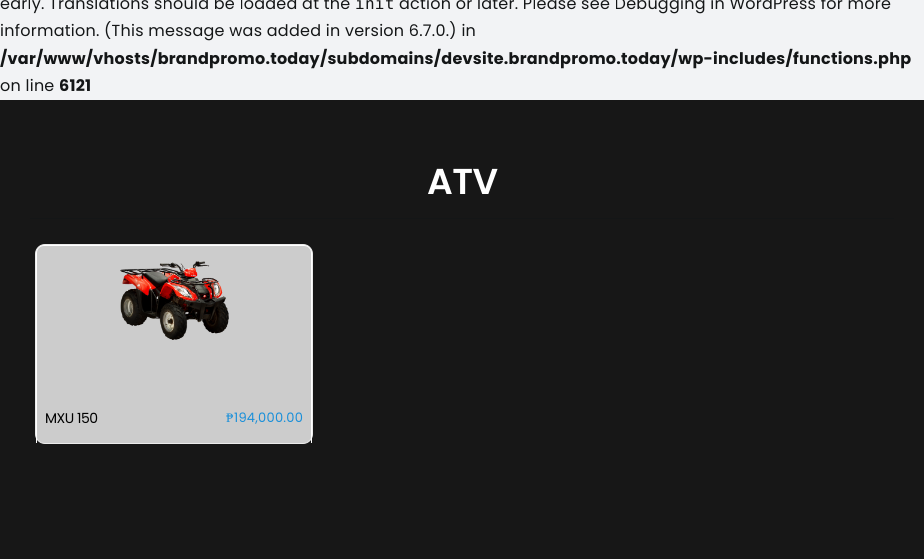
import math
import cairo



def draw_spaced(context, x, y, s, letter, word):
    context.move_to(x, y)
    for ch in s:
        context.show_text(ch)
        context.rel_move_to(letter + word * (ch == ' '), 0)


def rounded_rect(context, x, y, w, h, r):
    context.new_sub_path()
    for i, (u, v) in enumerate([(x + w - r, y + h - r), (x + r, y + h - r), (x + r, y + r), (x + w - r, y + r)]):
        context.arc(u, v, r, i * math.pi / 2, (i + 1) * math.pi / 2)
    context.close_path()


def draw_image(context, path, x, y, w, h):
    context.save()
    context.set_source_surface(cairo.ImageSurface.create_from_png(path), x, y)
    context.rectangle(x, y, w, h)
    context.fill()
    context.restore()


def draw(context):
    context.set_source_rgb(242 / 255, 243 / 255, 245 / 255)
    context.paint()
    context.set_source_rgb(23 / 255, 23 / 255, 23 / 255)
    context.rectangle(0, 100, 924, 459)
    context.fill()
    context.set_source_rgb(20 / 255, 22 / 255, 23 / 255)
    context.rectangle(30, 218, 864, 1)
    context.fill()
    context.set_source_rgb(204 / 255, 204 / 255, 204 / 255)
    rounded_rect(context, 35.5, 244.5, 277, 199, 9.5)
    context.fill_preserve()
    context.set_source_rgb(235 / 255, 235 / 255, 235 / 255)
    context.set_line_width(1)
    context.stroke()
    context.set_source_rgb(1, 1, 1)
    context.set_fill_rule(cairo.FillRule.EVEN_ODD)
    context.new_path()
    context.move_to(44, 245)
    context.line_to(304, 245)
    context.curve_to(308, 245, 312, 249, 312, 253)
    context.line_to(312, 393)
    context.line_to(36, 393)
    context.line_to(36, 253)
    context.curve_to(36, 249, 40, 245, 44, 245)
    context.close_path()
    context.move_to(44, 246)
    context.line_to(304, 246)
    context.curve_to(308, 246, 311, 249, 311, 253)
    context.line_to(311, 393)
    context.line_to(37, 393)
    context.line_to(37, 253)
    context.curve_to(37, 249, 40, 246, 44, 246)
    context.close_path()
    context.fill()
    draw_image(context, "images/1.png", 120, 261, 109, 79)
    context.rectangle(311, 393, 1, 50)
    context.fill()
    context.rectangle(36, 393, 1, 50)
    context.fill()
    context.select_font_face("Poppins")
    context.set_font_size(16)
    context.set_source_rgb(20 / 255, 22 / 255, 23 / 255)
    draw_spaced(context, 0, 9, "early. Translations should be loaded at the", 0.25, 0)
    context.select_font_face("DejaVu Sans Mono")
    draw_spaced(context, 355, 9, "init", 0.25, 0)
    context.select_font_face("Poppins")
    draw_spaced(context, 399, 9, "action or later. Please see Debugging in WordPress for more", 0.25, 0)
    draw_spaced(context, 0, 36, "information. (This message was added in version 6.7.0.) in", 0.25, 0)
    context.select_font_face("Poppins", cairo.FontSlant.NORMAL, cairo.FontWeight.BOLD)
    draw_spaced(context, 0, 64, "/var/www/vhosts/brandpromo.today/subdomains/devsite.brandpromo.today/wp-includes/functions.php", 0.25, 0)
    context.select_font_face("Poppins")
    draw_spaced(context, 0, 91, "on line", 0.25, 0)
    context.select_font_face("Poppins", cairo.FontSlant.NORMAL, cairo.FontWeight.BOLD)
    draw_spaced(context, 59, 91, "6121", 0.25, 0)
    context.select_font_face("Poppins SemiBold")
    context.set_font_size(36)
    context.set_source_rgb(1, 1, 1)
    draw_spaced(context, 427, 194, "ATV", -0.5, 0)
    context.select_font_face("Poppins")
    context.set_font_size(14)
    context.set_source_rgb(0, 0, 0)
    draw_spaced(context, 45, 423, "MXU 150", -0.5, 0)
    context.select_font_face("Liberation Serif")
    context.set_font_size(13)
    context.set_source_rgb(25 / 255, 143 / 255, 217 / 255)
    draw_spaced(context, 226, 422, "₱", 0.25, 0)
    context.select_font_face("Poppins")
    draw_spaced(context, 234, 422, "194,000.00", 0.25, 0)


surface = cairo.ImageSurface(cairo.Format.RGB24, 924, 559)
context = cairo.Context(surface)
options = cairo.FontOptions()
options.set_hint_metrics(cairo.HintMetrics.OFF)
options.set_hint_style(cairo.HintStyle.NONE)
context.set_font_options(options)
context.set_miter_limit(4)
draw(context)
surface.write_to_png("out.png")
